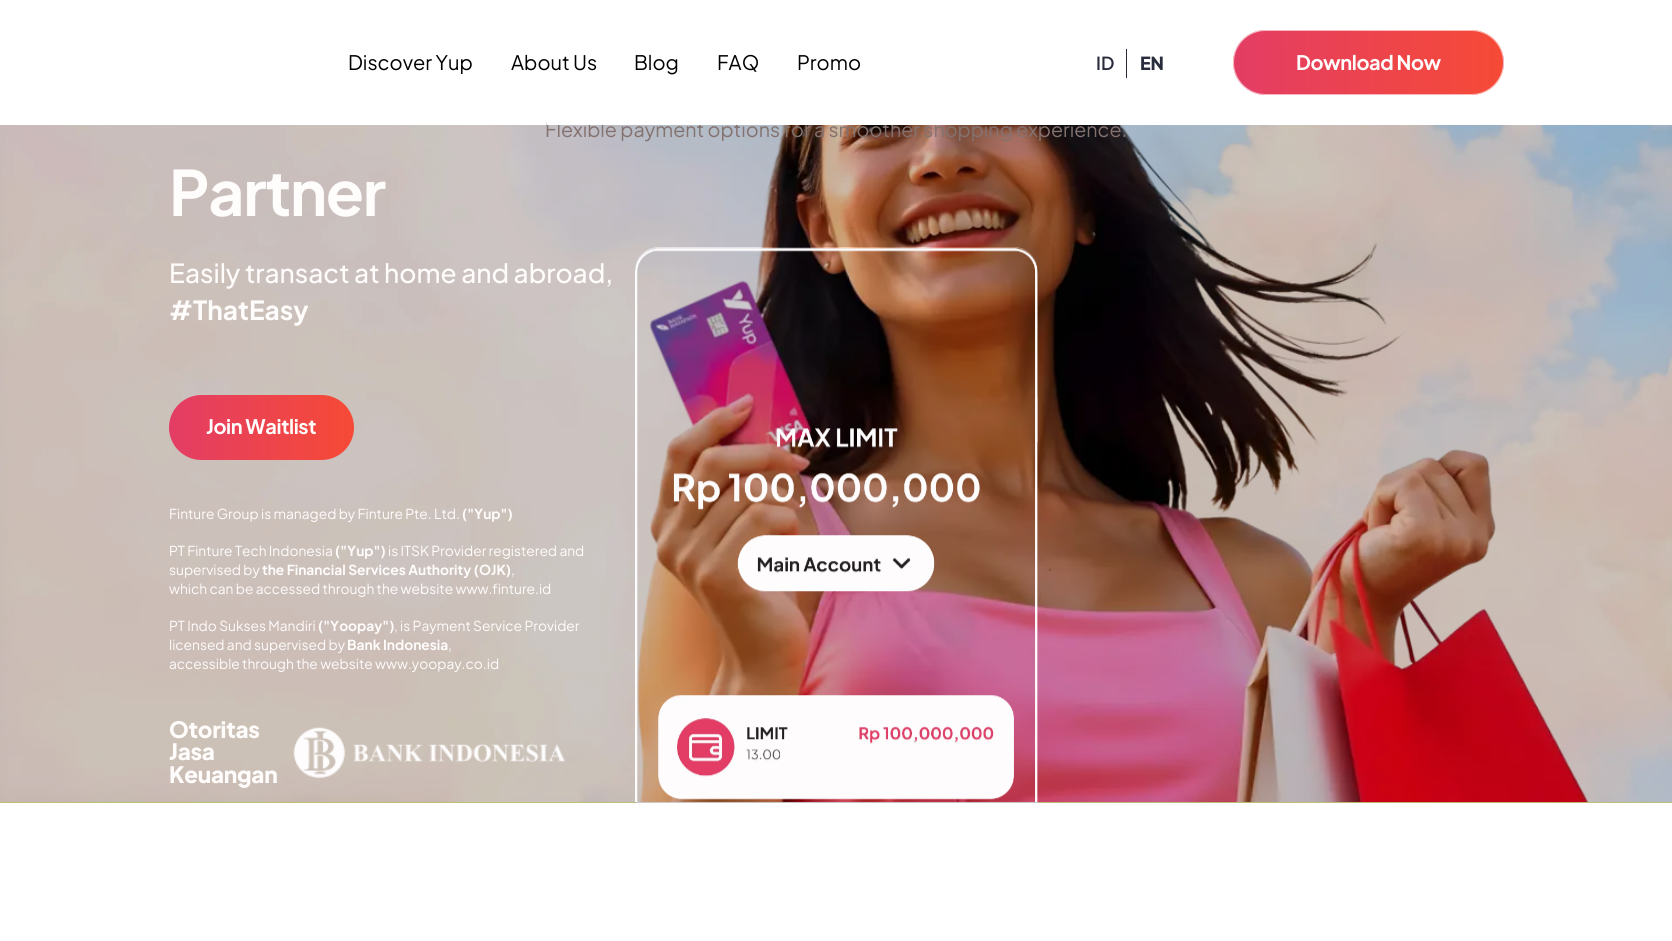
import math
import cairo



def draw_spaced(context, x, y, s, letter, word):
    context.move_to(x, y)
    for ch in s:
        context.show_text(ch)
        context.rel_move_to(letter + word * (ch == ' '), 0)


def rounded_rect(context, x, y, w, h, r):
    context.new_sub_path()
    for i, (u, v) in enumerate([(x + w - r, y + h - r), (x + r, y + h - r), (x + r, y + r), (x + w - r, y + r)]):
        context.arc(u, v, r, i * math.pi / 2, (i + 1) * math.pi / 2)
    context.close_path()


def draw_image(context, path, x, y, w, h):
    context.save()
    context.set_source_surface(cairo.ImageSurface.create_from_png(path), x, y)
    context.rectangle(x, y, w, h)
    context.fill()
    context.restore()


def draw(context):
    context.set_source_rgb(1, 1, 1)
    context.paint()
    context.set_source_rgb(41 / 255, 43 / 255, 58 / 255)
    context.rectangle(1126, 49, 1, 29)
    context.fill()
    context.set_source_rgb(229 / 255, 231 / 255, 235 / 255)
    context.rectangle(1126, 48, 1, 1)
    context.fill()
    context.save()
    rounded_rect(context, 1233, 30, 271, 65, 32.5)
    context.clip()
    gradient = cairo.LinearGradient(1234, 62, 965, 63)
    gradient.add_color_stop_rgba(0, 246 / 255, 74 / 255, 54 / 255, 1)
    gradient.add_color_stop_rgba(1, 227 / 255, 61 / 255, 101 / 255, 1)
    context.set_source(gradient)
    context.rectangle(1233, 55, 1, 15)
    context.fill()
    gradient = cairo.LinearGradient(1503, 62, 1234, 63)
    gradient.add_color_stop_rgba(0, 246 / 255, 74 / 255, 54 / 255, 1)
    gradient.add_color_stop_rgba(1, 227 / 255, 61 / 255, 101 / 255, 1)
    context.set_source(gradient)
    context.rectangle(1234, 30, 269, 65)
    context.fill()
    gradient = cairo.LinearGradient(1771, 62, 1503, 63)
    gradient.add_color_stop_rgba(0, 246 / 255, 74 / 255, 54 / 255, 1)
    gradient.add_color_stop_rgba(1, 227 / 255, 61 / 255, 101 / 255, 1)
    context.set_source(gradient)
    context.rectangle(1503, 55, 1, 15)
    context.fill()
    context.restore()
    rounded_rect(context, 1233.5, 30.5, 270, 64, 32)
    context.set_source_rgba(253 / 255, 252 / 255, 252 / 255, 0.63)
    context.set_line_width(1)
    context.stroke()
    gradient = cairo.LinearGradient(836, -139, 836, 803)
    gradient.add_color_stop_rgba(0, 178 / 255, 116 / 255, 54 / 255, 1)
    gradient.add_color_stop_rgba(1, 189 / 255, 191 / 255, 120 / 255, 1)
    context.set_source(gradient)
    context.rectangle(0, 802, 1672, 1)
    context.fill()
    draw_image(context, "images/4.png", 0, 125, 1672, 678)
    draw_image(context, "images/5.png", 760, 125, 829, 678)
    context.set_source_rgb(1, 1, 1)
    context.new_path()
    context.move_to(660, 253)
    context.line_to(1014, 253)
    context.curve_to(1027.5, 253, 1038, 263.5, 1038, 277)
    context.line_to(1038, 803)
    context.line_to(636, 803)
    context.line_to(636, 277)
    context.curve_to(636, 263.5, 646.5, 253, 660, 253)
    context.close_path()
    context.fill()
    draw_image(context, "images/1.png", 635, 247, 403, 556)
    draw_image(context, "images/2.png", 637, 247, 401, 556)
    context.set_source_rgba(0, 0, 0, 0.2)
    context.new_path()
    context.move_to(659, 248)
    context.line_to(1014, 248)
    context.curve_to(1027.5, 248, 1038, 258.5, 1038, 272)
    context.line_to(1038, 803)
    context.line_to(635, 803)
    context.line_to(635, 272)
    context.curve_to(635, 258.5, 645.5, 248, 659, 248)
    context.close_path()
    context.fill()
    draw_image(context, "images/3.png", 635, 248, 403, 555)
    gradient = cairo.LinearGradient(354, 427, 169, 427)
    gradient.add_color_stop_rgba(0, 246 / 255, 74 / 255, 54 / 255, 1)
    gradient.add_color_stop_rgba(1, 227 / 255, 61 / 255, 101 / 255, 1)
    context.set_source(gradient)
    rounded_rect(context, 169, 395, 185, 65, 32.5)
    context.fill()
    draw_image(context, "images/6.png", 293, 727, 273, 51)
    context.select_font_face("Plus Jakarta Sans")
    context.set_font_size(20)
    context.set_source_rgb(0, 0, 0)
    context.move_to(348, 70)
    context.show_text("Discover Yup")
    context.move_to(511, 70)
    context.show_text("About Us")
    context.move_to(634, 70)
    context.show_text("Blog")
    context.move_to(717, 70)
    context.show_text("FAQ")
    context.move_to(797, 70)
    context.show_text("Promo")
    context.select_font_face("Plus Jakarta Sans SemiBold")
    context.set_font_size(18)
    context.set_source_rgb(41 / 255, 44 / 255, 59 / 255)
    context.move_to(1096, 70)
    context.show_text("ID")
    context.select_font_face("Plus Jakarta Sans ExtraBold")
    context.move_to(1140, 70)
    context.show_text("EN")
    context.select_font_face("Plus Jakarta Sans", cairo.FontSlant.NORMAL, cairo.FontWeight.BOLD)
    context.set_font_size(20)
    context.set_source_rgb(1, 252 / 255, 252 / 255)
    draw_spaced(context, 1296, 70, "Download Now", -0.4, 0)
    context.select_font_face("Plus Jakarta Sans")
    context.set_font_size(19.7)
    context.set_source_rgb(132 / 255, 114 / 255, 111 / 255)
    context.move_to(545, 137)
    context.show_text("Flexible payment options for a smoother shopping experience.")
    context.set_source_rgb(1, 1, 1)
    context.rectangle(547, 122, 526, 3)
    context.fill()
    context.select_font_face("Plus Jakarta Sans", cairo.FontSlant.NORMAL, cairo.FontWeight.BOLD)
    context.set_font_size(62.5)
    context.set_source_rgb(1, 252 / 255, 252 / 255)
    draw_spaced(context, 169, 216, "Partner", -1.25, 0)
    context.select_font_face("Plus Jakarta Sans Medium")
    context.set_font_size(26.25)
    context.move_to(169, 283)
    context.show_text("Easily transact at home and abroad,")
    context.select_font_face("Plus Jakarta Sans", cairo.FontSlant.NORMAL, cairo.FontWeight.BOLD)
    context.move_to(169, 320)
    context.show_text("#ThatEasy")
    context.set_font_size(20)
    draw_spaced(context, 206, 434, "Join Waitlist", -0.4, 0)
    context.select_font_face("Plus Jakarta Sans")
    context.set_font_size(13.75)
    context.move_to(169, 519)
    context.show_text("Finture Group is managed by Finture Pte. Ltd.")
    context.select_font_face("Plus Jakarta Sans", cairo.FontSlant.NORMAL, cairo.FontWeight.BOLD)
    context.move_to(462, 519)
    context.show_text("(\"Yup\")")
    context.select_font_face("Plus Jakarta Sans")
    context.move_to(169, 556)
    context.show_text("PT Finture Tech Indonesia")
    context.select_font_face("Plus Jakarta Sans", cairo.FontSlant.NORMAL, cairo.FontWeight.BOLD)
    context.move_to(335, 556)
    context.show_text("(\"Yup\")")
    context.select_font_face("Plus Jakarta Sans")
    context.move_to(388, 556)
    context.show_text("is ITSK Provider registered and")
    context.move_to(169, 575)
    context.show_text("supervised by")
    context.select_font_face("Plus Jakarta Sans", cairo.FontSlant.NORMAL, cairo.FontWeight.BOLD)
    context.move_to(262, 575)
    context.show_text("the Financial Services Authority (OJK)")
    context.select_font_face("Plus Jakarta Sans")
    context.move_to(511, 575)
    context.show_text(",")
    context.move_to(169, 594)
    context.show_text("which can be accessed through the website www.finture.id")
    context.move_to(169, 631)
    context.show_text("PT Indo Sukses Mandiri")
    context.select_font_face("Plus Jakarta Sans", cairo.FontSlant.NORMAL, cairo.FontWeight.BOLD)
    context.move_to(318, 631)
    context.show_text("(\"Yoopay\")")
    context.select_font_face("Plus Jakarta Sans")
    context.move_to(394, 631)
    context.show_text(", is Payment Service Provider")
    context.move_to(169, 650)
    context.show_text("licensed and supervised by")
    context.select_font_face("Plus Jakarta Sans", cairo.FontSlant.NORMAL, cairo.FontWeight.BOLD)
    context.move_to(347, 650)
    context.show_text("Bank Indonesia")
    context.select_font_face("Plus Jakarta Sans")
    context.move_to(448, 650)
    context.show_text(",")
    context.move_to(169, 669)
    context.show_text("accessible through the website www.yoopay.co.id")
    context.select_font_face("Plus Jakarta Sans ExtraBold")
    context.set_font_size(22.5)
    draw_spaced(context, 169, 738, "Otoritas", -0.25, 0)
    draw_spaced(context, 169, 760, "Jasa", -0.25, 0)
    draw_spaced(context, 169, 783, "Keuangan", -0.25, 0)


surface = cairo.ImageSurface(cairo.Format.RGB24, 1672, 941)
context = cairo.Context(surface)
options = cairo.FontOptions()
options.set_hint_metrics(cairo.HintMetrics.OFF)
options.set_hint_style(cairo.HintStyle.NONE)
context.set_font_options(options)
context.set_miter_limit(4)
draw(context)
surface.write_to_png("out.png")
